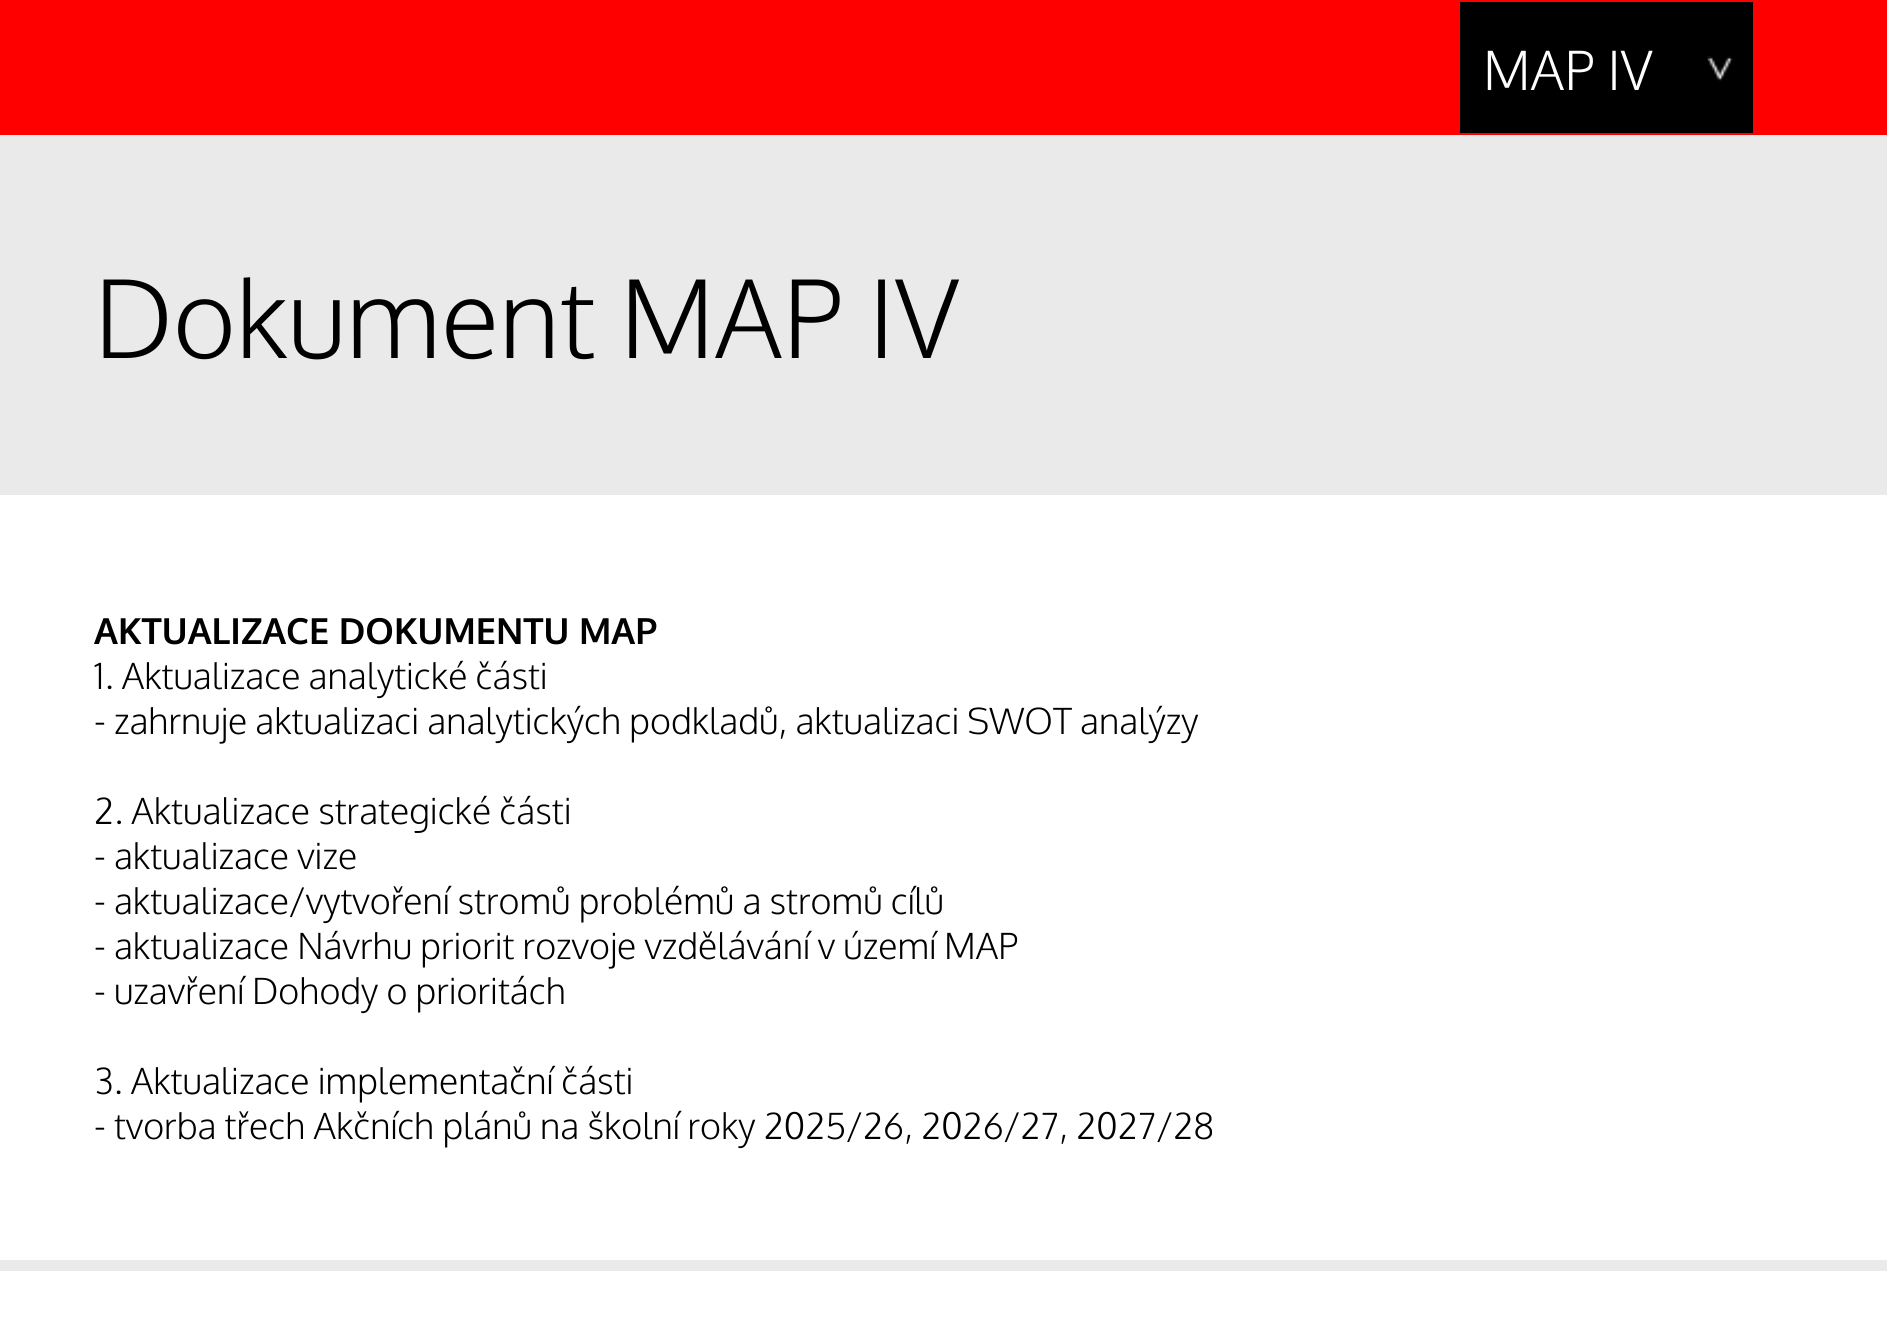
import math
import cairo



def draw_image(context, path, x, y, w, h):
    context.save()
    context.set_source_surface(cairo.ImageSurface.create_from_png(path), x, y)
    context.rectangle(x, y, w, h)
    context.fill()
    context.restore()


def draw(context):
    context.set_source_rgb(1, 1, 1)
    context.paint()
    context.set_source_rgb(1, 0, 0)
    context.rectangle(0, 0, 1887, 135)
    context.fill()
    context.set_source_rgb(0, 0, 0)
    context.rectangle(1460, 2, 293, 131)
    context.fill()
    draw_image(context, "images/1.png", 1707, 56, 26, 25)
    context.set_source_rgb(234 / 255, 234 / 255, 234 / 255)
    context.rectangle(0, 135, 1887, 360)
    context.fill()
    context.rectangle(0, 1260, 1887, 11)
    context.fill()
    context.select_font_face("Oxygen Light")
    context.set_font_size(54)
    context.set_source_rgb(1, 1, 1)
    context.move_to(1483, 90)
    context.show_text("MAP IV")
    context.set_font_size(108)
    context.set_source_rgb(0, 0, 0)
    context.move_to(94, 358)
    context.show_text("Dokument MAP IV")
    context.select_font_face("Oxygen", cairo.FontSlant.NORMAL, cairo.FontWeight.BOLD)
    context.set_font_size(36)
    context.move_to(94, 644)
    context.show_text("AKTUALIZACE DOKUMENTU MAP")
    context.select_font_face("Oxygen Light")
    context.move_to(94, 689)
    context.show_text("1. Aktualizace analytické části")
    context.move_to(94, 734)
    context.show_text("- zahrnuje aktualizaci analytických podkladů, aktualizaci SWOT analýzy")
    context.move_to(94, 824)
    context.show_text("2. Aktualizace strategické části")
    context.move_to(94, 869)
    context.show_text("- aktualizace vize")
    context.move_to(94, 914)
    context.show_text("- aktualizace/vytvoření stromů problémů a stromů cílů")
    context.move_to(94, 959)
    context.show_text("- aktualizace Návrhu priorit rozvoje vzdělávání v území MAP")
    context.move_to(94, 1004)
    context.show_text("- uzavření Dohody o prioritách")
    context.move_to(94, 1094)
    context.show_text("3. Aktualizace implementační části")
    context.move_to(94, 1139)
    context.show_text("- tvorba třech Akčních plánů na školní roky 2025/26, 2026/27, 2027/28")


surface = cairo.ImageSurface(cairo.Format.RGB24, 1887, 1332)
context = cairo.Context(surface)
options = cairo.FontOptions()
options.set_hint_metrics(cairo.HintMetrics.OFF)
options.set_hint_style(cairo.HintStyle.NONE)
context.set_font_options(options)
context.set_miter_limit(4)
draw(context)
surface.write_to_png("out.png")
